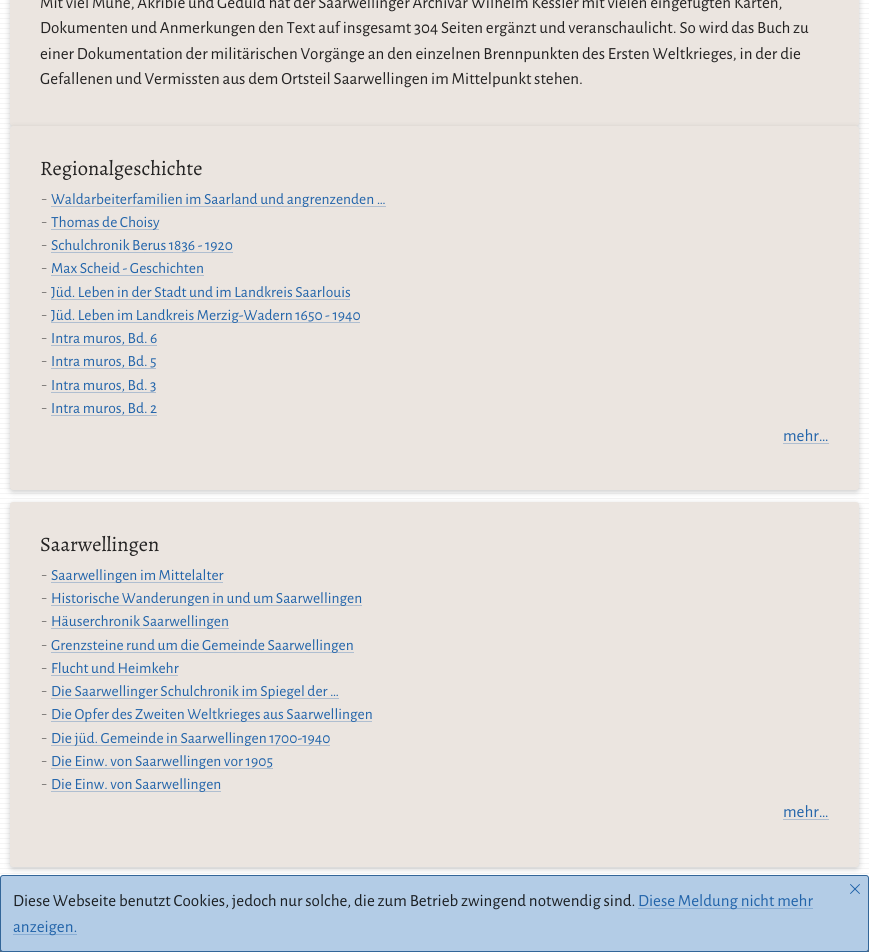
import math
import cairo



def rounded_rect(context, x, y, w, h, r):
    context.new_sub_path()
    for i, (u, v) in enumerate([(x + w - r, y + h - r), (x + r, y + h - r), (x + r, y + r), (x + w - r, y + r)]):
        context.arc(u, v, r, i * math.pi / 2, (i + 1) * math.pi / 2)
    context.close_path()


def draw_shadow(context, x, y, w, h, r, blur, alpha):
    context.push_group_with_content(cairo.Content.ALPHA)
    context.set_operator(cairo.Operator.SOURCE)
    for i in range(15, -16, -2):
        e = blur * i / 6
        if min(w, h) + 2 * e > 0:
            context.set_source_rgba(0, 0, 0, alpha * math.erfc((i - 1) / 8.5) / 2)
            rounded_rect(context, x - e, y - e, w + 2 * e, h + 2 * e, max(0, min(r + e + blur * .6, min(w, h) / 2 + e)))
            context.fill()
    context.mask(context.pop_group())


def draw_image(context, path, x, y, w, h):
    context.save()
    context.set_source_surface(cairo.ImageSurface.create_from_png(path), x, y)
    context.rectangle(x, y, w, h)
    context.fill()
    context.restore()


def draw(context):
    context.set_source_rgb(1, 1, 1)
    context.paint()
    draw_image(context, "images/1.png", 0, 3, 869, 871)
    context.set_source_rgb(0, 0, 0)
    draw_shadow(context, 10, -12, 849, 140, 3, 3, 0.2)
    context.set_source_rgb(235 / 255, 229 / 255, 224 / 255)
    rounded_rect(context, 10, -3, 849, 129, 3)
    context.fill()
    context.set_source_rgb(0, 0, 0)
    draw_shadow(context, 10, 128, 849, 364, 3, 3, 0.2)
    context.set_source_rgb(235 / 255, 229 / 255, 224 / 255)
    rounded_rect(context, 10, 126, 849, 364, 3)
    context.fill()
    context.set_source_rgb(175 / 255, 190 / 255, 208 / 255)
    context.rectangle(51, 206, 335, 1)
    context.fill()
    context.rectangle(51, 229, 108, 1)
    context.fill()
    context.rectangle(51, 252, 182, 1)
    context.fill()
    context.rectangle(51, 275, 153, 1)
    context.fill()
    context.rectangle(51, 299, 299, 1)
    context.fill()
    context.rectangle(51, 322, 309, 1)
    context.fill()
    context.rectangle(51, 345, 106, 1)
    context.fill()
    context.rectangle(51, 368, 105, 1)
    context.fill()
    context.rectangle(51, 392, 105, 1)
    context.fill()
    context.rectangle(51, 415, 106, 1)
    context.fill()
    context.rectangle(783, 443, 46, 1)
    context.fill()
    context.set_source_rgb(0, 0, 0)
    draw_shadow(context, 10, 504, 849, 365, 3, 3, 0.2)
    context.set_source_rgb(235 / 255, 229 / 255, 224 / 255)
    rounded_rect(context, 10, 502, 849, 365, 3)
    context.fill()
    context.set_source_rgb(175 / 255, 190 / 255, 208 / 255)
    context.rectangle(51, 582, 172, 1)
    context.fill()
    context.rectangle(51, 605, 311, 1)
    context.fill()
    context.rectangle(51, 628, 178, 1)
    context.fill()
    context.rectangle(51, 652, 303, 1)
    context.fill()
    context.rectangle(51, 675, 127, 1)
    context.fill()
    context.rectangle(51, 698, 288, 1)
    context.fill()
    context.rectangle(51, 721, 321, 1)
    context.fill()
    context.rectangle(51, 745, 279, 1)
    context.fill()
    context.rectangle(51, 768, 222, 1)
    context.fill()
    context.rectangle(51, 791, 170, 1)
    context.fill()
    context.rectangle(783, 819, 46, 1)
    context.fill()
    context.set_source_rgb(77 / 255, 101 / 255, 128 / 255)
    context.rectangle(0, 949, 869, 3)
    context.fill()
    context.set_source_rgb(179 / 255, 204 / 255, 230 / 255)
    rounded_rect(context, 0.5, 875.5, 868, 76, 2.5)
    context.fill_preserve()
    context.set_source_rgb(51 / 255, 102 / 255, 153 / 255)
    context.set_line_width(1)
    context.stroke()
    draw_image(context, "images/2.png", 850, 884, 10, 10)
    context.set_source_rgb(136 / 255, 173 / 255, 212 / 255)
    context.rectangle(638, 908, 175, 1)
    context.fill()
    context.rectangle(13, 934, 64, 1)
    context.fill()
    context.select_font_face("Alegreya Sans")
    context.set_font_size(17)
    context.set_source_rgb(35 / 255, 34 / 255, 34 / 255)
    context.move_to(40, 8)
    context.show_text("Mit viel Mühe, Akribie und Geduld hat der Saarwellinger Archivar Wilhelm Kessler mit vielen eingefügten Karten,")
    context.move_to(40, 33)
    context.show_text("Dokumenten und Anmerkungen den Text auf insgesamt 304 Seiten ergänzt und veranschaulicht. So wird das Buch zu")
    context.move_to(40, 59)
    context.show_text("einer Dokumentation der militärischen Vorgänge an den einzelnen Brennpunkten des Ersten Weltkrieges, in der die")
    context.move_to(40, 84)
    context.show_text("Gefallenen und Vermissten aus dem Ortsteil Saarwellingen im Mittelpunkt stehen.")
    context.select_font_face("Alegreya")
    context.set_font_size(20.5)
    context.move_to(40, 175)
    context.show_text("Regionalgeschichte")
    context.select_font_face("Alegreya Sans")
    context.set_font_size(9)
    context.move_to(42, 202)
    context.show_text("–")
    context.set_font_size(15.5)
    context.set_source_rgb(34 / 255, 100 / 255, 170 / 255)
    context.move_to(51, 204)
    context.show_text("Waldarbeiterfamilien im Saarland und angrenzenden …")
    context.set_font_size(9)
    context.set_source_rgb(35 / 255, 34 / 255, 34 / 255)
    context.move_to(42, 225)
    context.show_text("–")
    context.set_font_size(15.5)
    context.set_source_rgb(34 / 255, 100 / 255, 170 / 255)
    context.move_to(51, 227)
    context.show_text("Thomas de Choisy")
    context.set_font_size(9)
    context.set_source_rgb(35 / 255, 34 / 255, 34 / 255)
    context.move_to(42, 248)
    context.show_text("–")
    context.set_font_size(15.5)
    context.set_source_rgb(34 / 255, 100 / 255, 170 / 255)
    context.move_to(51, 250)
    context.show_text("Schulchronik Berus 1836 - 1920")
    context.set_font_size(9)
    context.set_source_rgb(35 / 255, 34 / 255, 34 / 255)
    context.move_to(42, 271)
    context.show_text("–")
    context.set_font_size(15.5)
    context.set_source_rgb(34 / 255, 100 / 255, 170 / 255)
    context.move_to(51, 273)
    context.show_text("Max Scheid - Geschichten")
    context.set_font_size(9)
    context.set_source_rgb(35 / 255, 34 / 255, 34 / 255)
    context.move_to(42, 295)
    context.show_text("–")
    context.set_font_size(15.5)
    context.set_source_rgb(34 / 255, 100 / 255, 170 / 255)
    context.move_to(51, 297)
    context.show_text("Jüd. Leben in der Stadt und im Landkreis Saarlouis")
    context.set_font_size(9)
    context.set_source_rgb(35 / 255, 34 / 255, 34 / 255)
    context.move_to(42, 318)
    context.show_text("–")
    context.set_font_size(15.5)
    context.set_source_rgb(34 / 255, 100 / 255, 170 / 255)
    context.move_to(51, 320)
    context.show_text("Jüd. Leben im Landkreis Merzig-Wadern 1650 - 1940")
    context.set_font_size(9)
    context.set_source_rgb(35 / 255, 34 / 255, 34 / 255)
    context.move_to(42, 341)
    context.show_text("–")
    context.set_font_size(15.5)
    context.set_source_rgb(34 / 255, 100 / 255, 170 / 255)
    context.move_to(51, 343)
    context.show_text("Intra muros, Bd. 6")
    context.set_font_size(9)
    context.set_source_rgb(35 / 255, 34 / 255, 34 / 255)
    context.move_to(42, 364)
    context.show_text("–")
    context.set_font_size(15.5)
    context.set_source_rgb(34 / 255, 100 / 255, 170 / 255)
    context.move_to(51, 366)
    context.show_text("Intra muros, Bd. 5")
    context.set_font_size(9)
    context.set_source_rgb(35 / 255, 34 / 255, 34 / 255)
    context.move_to(42, 388)
    context.show_text("–")
    context.set_font_size(15.5)
    context.set_source_rgb(34 / 255, 100 / 255, 170 / 255)
    context.move_to(51, 390)
    context.show_text("Intra muros, Bd. 3")
    context.set_font_size(9)
    context.set_source_rgb(35 / 255, 34 / 255, 34 / 255)
    context.move_to(42, 411)
    context.show_text("–")
    context.set_font_size(15.5)
    context.set_source_rgb(34 / 255, 100 / 255, 170 / 255)
    context.move_to(51, 413)
    context.show_text("Intra muros, Bd. 2")
    context.set_font_size(17)
    context.move_to(783, 441)
    context.show_text("mehr…")
    context.select_font_face("Alegreya")
    context.set_font_size(20.5)
    context.set_source_rgb(35 / 255, 34 / 255, 34 / 255)
    context.move_to(40, 551)
    context.show_text("Saarwellingen")
    context.select_font_face("Alegreya Sans")
    context.set_font_size(9)
    context.move_to(42, 578)
    context.show_text("–")
    context.set_font_size(15.5)
    context.set_source_rgb(34 / 255, 100 / 255, 170 / 255)
    context.move_to(51, 580)
    context.show_text("Saarwellingen im Mittelalter")
    context.set_font_size(9)
    context.set_source_rgb(35 / 255, 34 / 255, 34 / 255)
    context.move_to(42, 601)
    context.show_text("–")
    context.set_font_size(15.5)
    context.set_source_rgb(34 / 255, 100 / 255, 170 / 255)
    context.move_to(51, 603)
    context.show_text("Historische Wanderungen in und um Saarwellingen")
    context.set_font_size(9)
    context.set_source_rgb(35 / 255, 34 / 255, 34 / 255)
    context.move_to(42, 624)
    context.show_text("–")
    context.set_font_size(15.5)
    context.set_source_rgb(34 / 255, 100 / 255, 170 / 255)
    context.move_to(51, 626)
    context.show_text("Häuserchronik Saarwellingen")
    context.set_font_size(9)
    context.set_source_rgb(35 / 255, 34 / 255, 34 / 255)
    context.move_to(42, 648)
    context.show_text("–")
    context.set_font_size(15.5)
    context.set_source_rgb(34 / 255, 100 / 255, 170 / 255)
    context.move_to(51, 650)
    context.show_text("Grenzsteine rund um die Gemeinde Saarwellingen")
    context.set_font_size(9)
    context.set_source_rgb(35 / 255, 34 / 255, 34 / 255)
    context.move_to(42, 671)
    context.show_text("–")
    context.set_font_size(15.5)
    context.set_source_rgb(34 / 255, 100 / 255, 170 / 255)
    context.move_to(51, 673)
    context.show_text("Flucht und Heimkehr")
    context.set_font_size(9)
    context.set_source_rgb(35 / 255, 34 / 255, 34 / 255)
    context.move_to(42, 694)
    context.show_text("–")
    context.set_font_size(15.5)
    context.set_source_rgb(34 / 255, 100 / 255, 170 / 255)
    context.move_to(51, 696)
    context.show_text("Die Saarwellinger Schulchronik im Spiegel der …")
    context.set_font_size(9)
    context.set_source_rgb(35 / 255, 34 / 255, 34 / 255)
    context.move_to(42, 717)
    context.show_text("–")
    context.set_font_size(15.5)
    context.set_source_rgb(34 / 255, 100 / 255, 170 / 255)
    context.move_to(51, 719)
    context.show_text("Die Opfer des Zweiten Weltkrieges aus Saarwellingen")
    context.set_font_size(9)
    context.set_source_rgb(35 / 255, 34 / 255, 34 / 255)
    context.move_to(42, 741)
    context.show_text("–")
    context.set_font_size(15.5)
    context.set_source_rgb(34 / 255, 100 / 255, 170 / 255)
    context.move_to(51, 743)
    context.show_text("Die jüd. Gemeinde in Saarwellingen 1700-1940")
    context.set_font_size(9)
    context.set_source_rgb(35 / 255, 34 / 255, 34 / 255)
    context.move_to(42, 764)
    context.show_text("–")
    context.set_font_size(15.5)
    context.set_source_rgb(34 / 255, 100 / 255, 170 / 255)
    context.move_to(51, 766)
    context.show_text("Die Einw. von Saarwellingen vor 1905")
    context.set_font_size(9)
    context.set_source_rgb(35 / 255, 34 / 255, 34 / 255)
    context.move_to(42, 787)
    context.show_text("–")
    context.set_font_size(15.5)
    context.set_source_rgb(34 / 255, 100 / 255, 170 / 255)
    context.move_to(51, 789)
    context.show_text("Die Einw. von Saarwellingen")
    context.set_font_size(17)
    context.move_to(783, 817)
    context.show_text("mehr…")
    context.set_source_rgb(27 / 255, 31 / 255, 35 / 255)
    context.move_to(13, 906)
    context.show_text("Diese Webseite benutzt Cookies, jedoch nur solche, die zum Betrieb zwingend notwendig sind.")
    context.set_source_rgb(34 / 255, 100 / 255, 170 / 255)
    context.move_to(638, 906)
    context.show_text("Diese Meldung nicht mehr")
    context.move_to(13, 932)
    context.show_text("anzeigen.")


surface = cairo.ImageSurface(cairo.Format.RGB24, 869, 952)
context = cairo.Context(surface)
options = cairo.FontOptions()
options.set_hint_metrics(cairo.HintMetrics.OFF)
options.set_hint_style(cairo.HintStyle.NONE)
context.set_font_options(options)
context.set_miter_limit(4)
draw(context)
surface.write_to_png("out.png")
